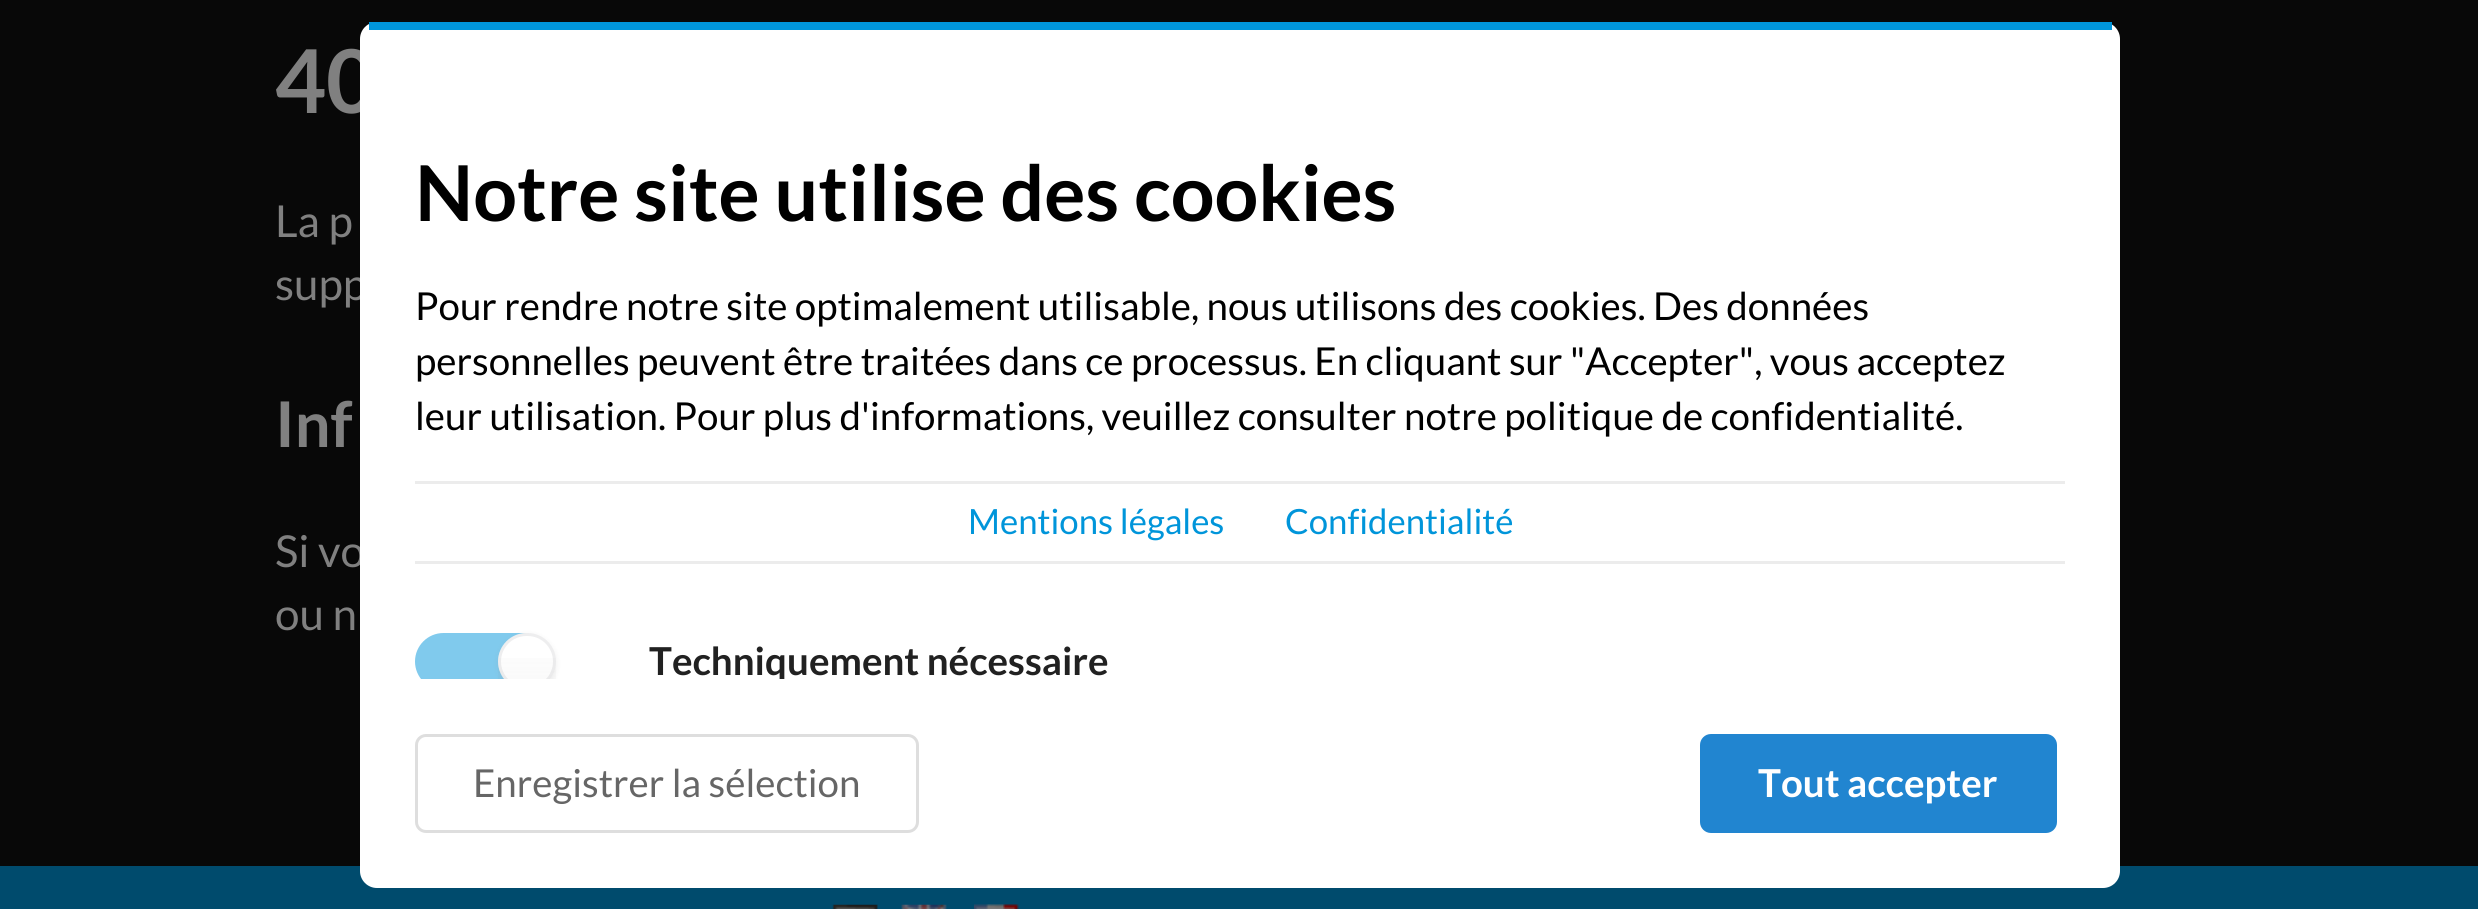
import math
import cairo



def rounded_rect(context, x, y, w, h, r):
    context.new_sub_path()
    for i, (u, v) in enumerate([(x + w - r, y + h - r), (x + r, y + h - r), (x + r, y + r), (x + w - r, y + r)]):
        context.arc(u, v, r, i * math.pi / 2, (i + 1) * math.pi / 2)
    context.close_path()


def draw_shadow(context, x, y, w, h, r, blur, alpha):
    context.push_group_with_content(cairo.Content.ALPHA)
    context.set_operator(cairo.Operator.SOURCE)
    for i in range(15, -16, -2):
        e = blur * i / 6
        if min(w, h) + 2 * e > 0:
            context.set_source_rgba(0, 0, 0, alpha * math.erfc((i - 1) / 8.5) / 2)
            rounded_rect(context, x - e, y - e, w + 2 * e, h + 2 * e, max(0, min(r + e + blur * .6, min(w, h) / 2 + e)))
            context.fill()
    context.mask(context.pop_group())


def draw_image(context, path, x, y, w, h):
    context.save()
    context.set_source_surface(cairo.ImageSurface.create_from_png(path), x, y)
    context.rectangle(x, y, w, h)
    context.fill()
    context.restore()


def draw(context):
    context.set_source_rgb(8 / 255, 8 / 255, 8 / 255)
    context.paint()
    context.set_source_rgb(0, 75 / 255, 109 / 255)
    context.rectangle(0, 866, 2478, 43)
    context.fill()
    draw_image(context, "images/1.png", 832, 904, 46, 5)
    draw_image(context, "images/2.png", 901, 904, 46, 5)
    draw_image(context, "images/3.png", 974, 904, 45, 5)
    context.select_font_face("Lato", cairo.FontSlant.NORMAL, cairo.FontWeight.BOLD)
    context.set_font_size(88)
    context.set_source_rgb(128 / 255, 128 / 255, 128 / 255)
    context.move_to(275, 113)
    context.show_text("40")
    context.select_font_face("Lato")
    context.set_font_size(44)
    context.move_to(275, 237)
    context.show_text("La p")
    context.move_to(275, 300)
    context.show_text("supp")
    context.select_font_face("Lato", cairo.FontSlant.NORMAL, cairo.FontWeight.BOLD)
    context.set_font_size(63)
    context.move_to(275, 447)
    context.show_text("Inf")
    context.select_font_face("Lato")
    context.set_font_size(44)
    context.move_to(275, 567)
    context.show_text("Si vo")
    context.move_to(275, 630)
    context.show_text("ou n")
    context.set_source_rgb(1, 1, 1)
    rounded_rect(context, 360, 22, 1760, 866, 17)
    context.fill()
    context.set_source_rgb(0, 149 / 255, 218 / 255)
    context.rectangle(369, 22, 1743, 8)
    context.fill()
    context.select_font_face("Lato", cairo.FontSlant.NORMAL, cairo.FontWeight.BOLD)
    context.set_font_size(77)
    context.set_source_rgb(0, 0, 0)
    context.move_to(415, 221)
    context.show_text("Notre site utilise des cookies")
    context.select_font_face("Lato")
    context.set_font_size(38.5)
    context.move_to(415, 320)
    context.show_text("Pour rendre notre site optimalement utilisable, nous utilisons des cookies. Des données")
    context.move_to(415, 375)
    context.show_text("personnelles peuvent être traitées dans ce processus. En cliquant sur \"Accepter\", vous acceptez")
    context.move_to(415, 430)
    context.show_text("leur utilisation. Pour plus d'informations, veuillez consulter notre politique de confidentialité.")
    context.set_source_rgb(236 / 255, 236 / 255, 236 / 255)
    context.rectangle(415, 481, 1650, 3)
    context.fill()
    context.rectangle(415, 561, 1650, 3)
    context.fill()
    context.set_font_size(34.75)
    context.set_source_rgb(0, 149 / 255, 218 / 255)
    context.move_to(968, 534)
    context.show_text("Mentions légales")
    context.move_to(1285, 534)
    context.show_text("Confidentialité")
    context.save()
    context.rectangle(415, 140, 1650, 539)
    context.clip()
    context.set_source_rgb(128 / 255, 202 / 255, 237 / 255)
    rounded_rect(context, 415, 633, 135, 57, 28.5)
    context.fill()
    context.restore()
    context.save()
    context.rectangle(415, 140, 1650, 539)
    context.clip()
    context.set_source_rgb(145 / 255, 146 / 255, 147 / 255)
    draw_shadow(context, 498, 635, 58, 58, 29, 3, 0.15)
    context.restore()
    context.save()
    context.rectangle(415, 140, 1650, 539)
    context.clip()
    context.set_source_rgb(1, 1, 1)
    rounded_rect(context, 498, 633, 58, 57, 28.5)
    context.fill()
    context.restore()
    gradient = cairo.LinearGradient(527, 633, 527, 690)
    gradient.add_color_stop_rgba(0, 128 / 255, 128 / 255, 128 / 255, 0)
    gradient.add_color_stop_rgba(1, 128 / 255, 128 / 255, 128 / 255, 0.05)
    context.set_source(gradient)
    context.rectangle(498, 658, 58, 21)
    context.fill()
    context.save()
    context.rectangle(415, 140, 1650, 539)
    context.clip()
    rounded_rect(context, 499.5, 634.5, 55, 54, 27)
    context.set_source_rgba(145 / 255, 146 / 255, 147 / 255, 0.15)
    context.set_line_width(3)
    context.stroke()
    context.select_font_face("Lato", cairo.FontSlant.NORMAL, cairo.FontWeight.BOLD)
    context.set_font_size(38.5)
    context.set_source_rgb(33 / 255, 33 / 255, 33 / 255)
    context.move_to(649, 675)
    context.show_text("Techniquement nécessaire")
    context.restore()
    rounded_rect(context, 416.5, 735.5, 501, 96, 9.5)
    context.set_source_rgb(222 / 255, 222 / 255, 222 / 255)
    context.set_line_width(3)
    context.stroke()
    context.set_font_size(38.5)
    context.set_source_rgb(102 / 255, 102 / 255, 102 / 255)
    context.move_to(473, 797)
    context.show_text("Enregistrer la sélection")
    context.set_source_rgb(33 / 255, 133 / 255, 208 / 255)
    rounded_rect(context, 1700, 734, 357, 99, 11)
    context.fill()
    context.select_font_face("Lato", cairo.FontSlant.NORMAL, cairo.FontWeight.BOLD)
    context.set_source_rgb(1, 1, 1)
    context.move_to(1758, 797)
    context.show_text("Tout accepter")


surface = cairo.ImageSurface(cairo.Format.RGB24, 2478, 909)
context = cairo.Context(surface)
options = cairo.FontOptions()
options.set_hint_metrics(cairo.HintMetrics.OFF)
options.set_hint_style(cairo.HintStyle.NONE)
context.set_font_options(options)
context.set_miter_limit(4)
draw(context)
surface.write_to_png("out.png")
